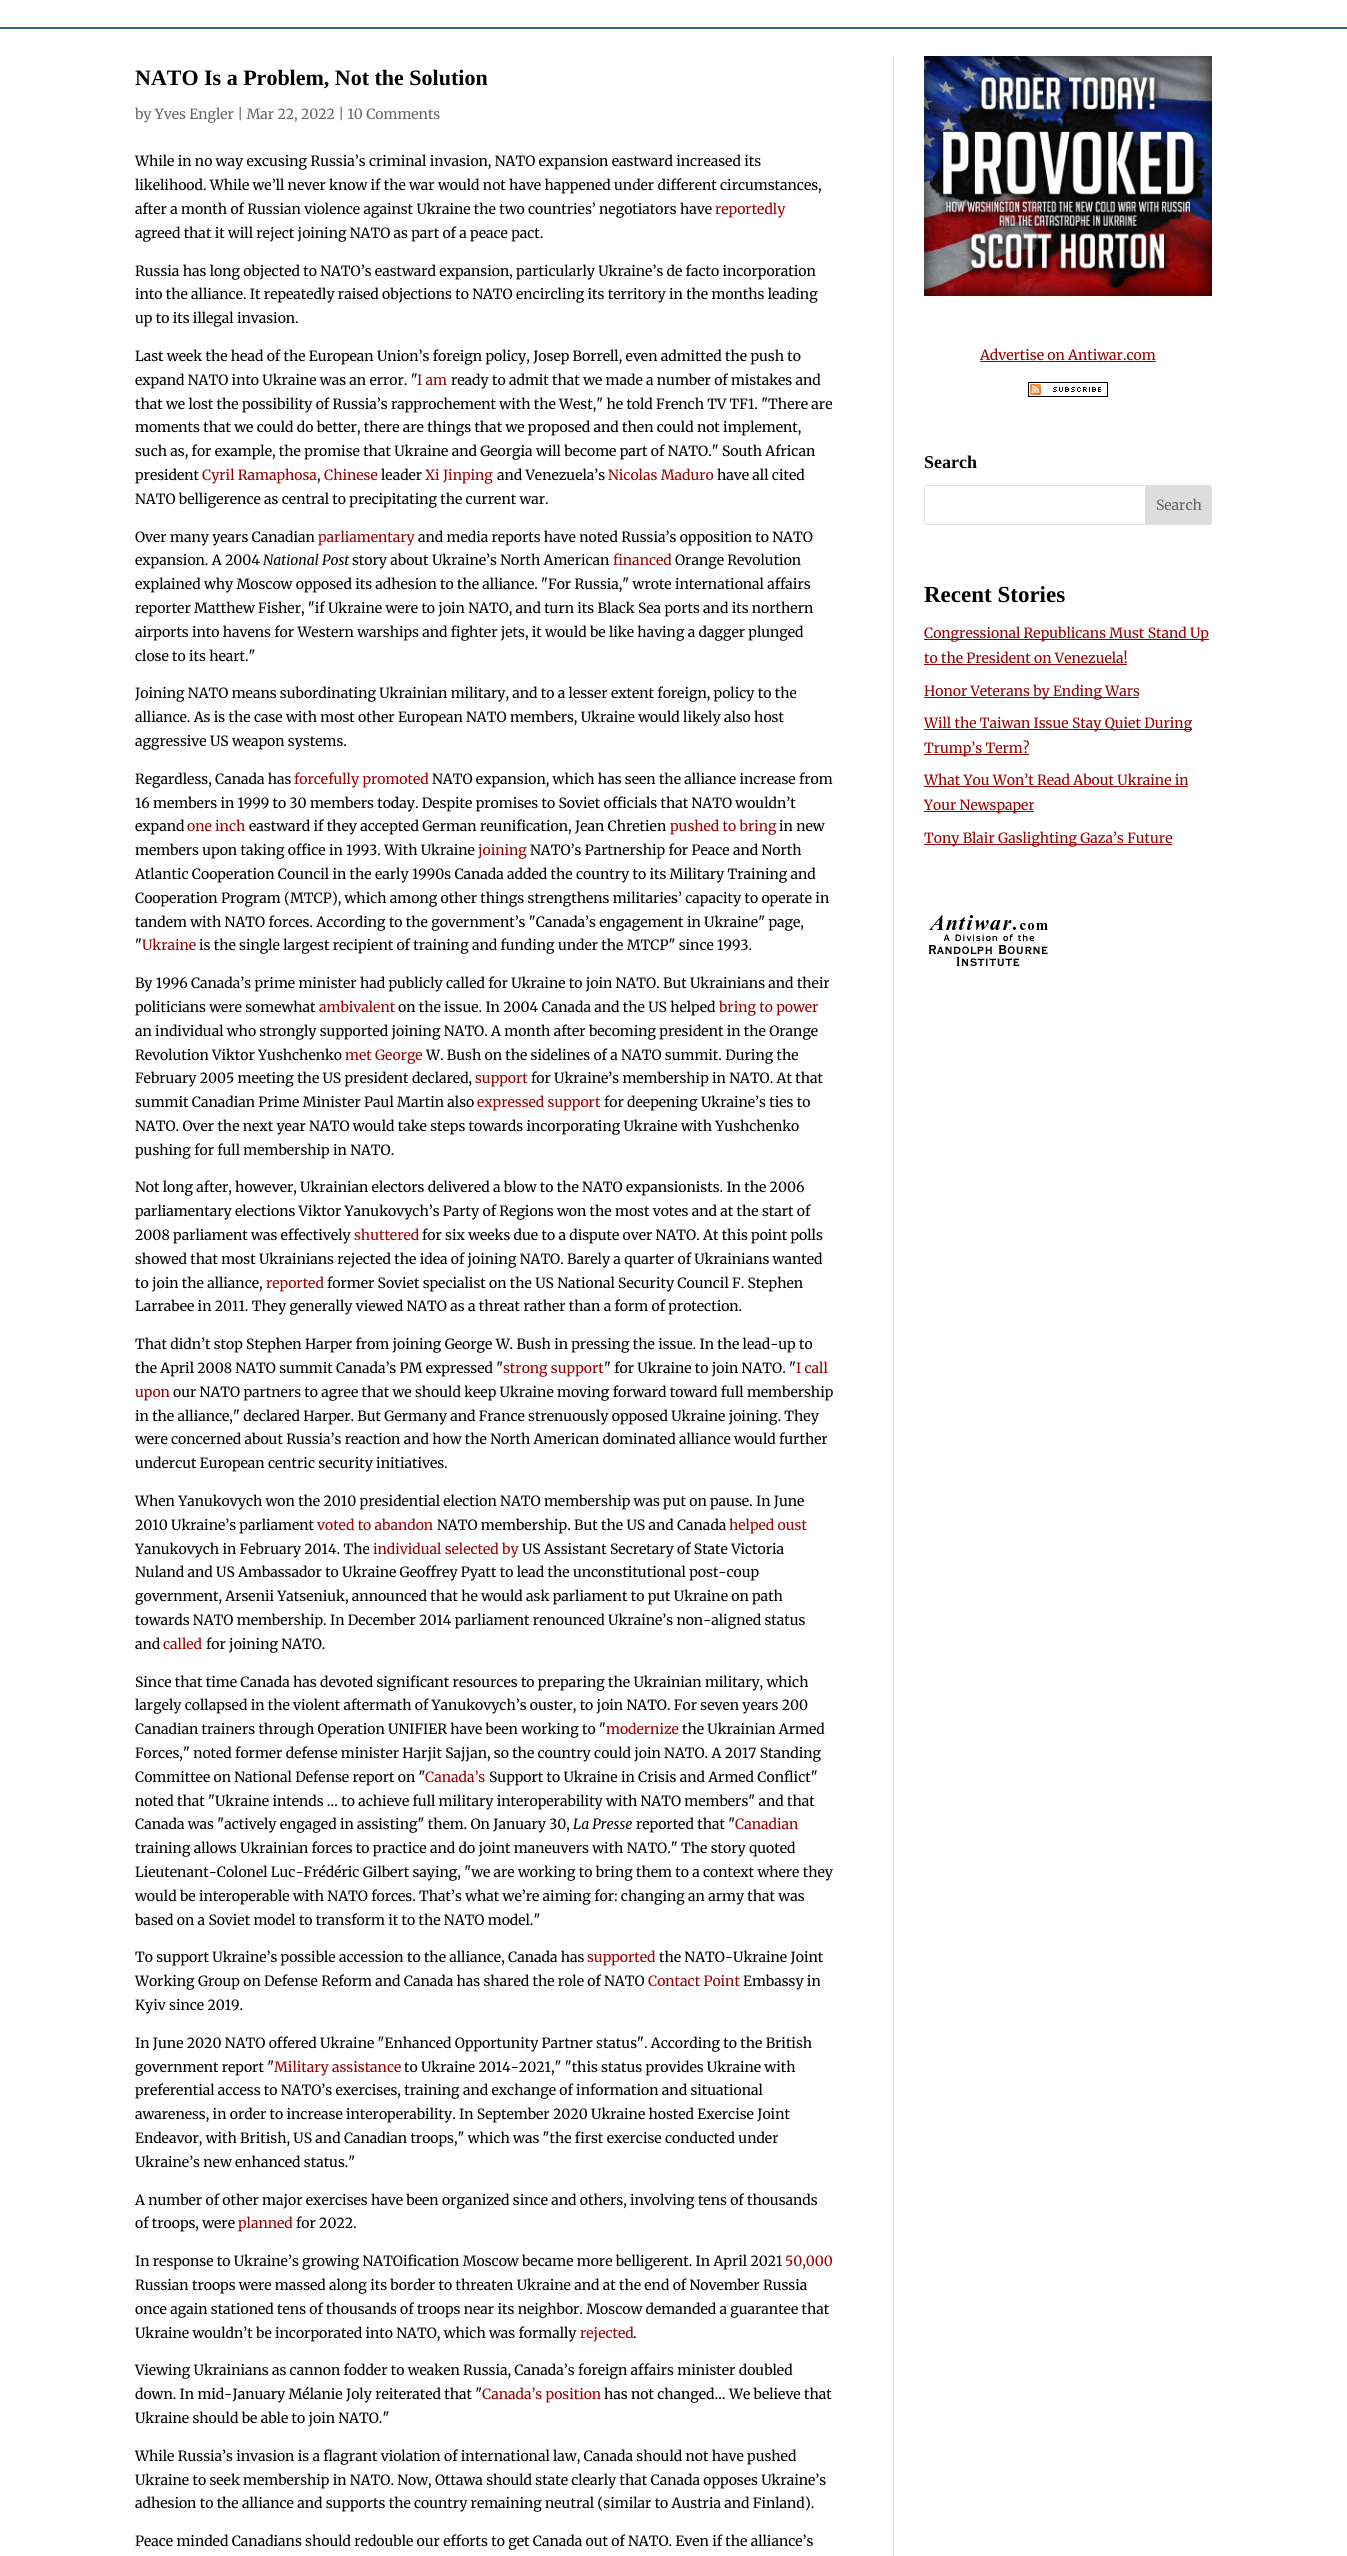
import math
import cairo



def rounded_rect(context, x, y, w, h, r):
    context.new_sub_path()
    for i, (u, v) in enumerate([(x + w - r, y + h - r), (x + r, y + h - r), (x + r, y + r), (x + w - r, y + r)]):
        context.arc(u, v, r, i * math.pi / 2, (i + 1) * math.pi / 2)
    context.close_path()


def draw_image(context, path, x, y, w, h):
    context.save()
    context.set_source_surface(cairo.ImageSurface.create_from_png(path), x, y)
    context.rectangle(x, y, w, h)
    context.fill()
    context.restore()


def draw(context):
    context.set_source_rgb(1, 1, 1)
    context.paint()
    context.set_source_rgb(51 / 255, 102 / 255, 153 / 255)
    context.rectangle(0, 27, 1347, 2)
    context.fill()
    context.set_source_rgb(230 / 255, 230 / 255, 230 / 255)
    context.rectangle(893, 56, 1, 2500)
    context.fill()
    draw_image(context, "images/1.png", 924, 56, 288, 240)
    context.set_source_rgb(153 / 255, 0, 0)
    context.rectangle(980, 361, 176, 1)
    context.fill()
    draw_image(context, "images/2.png", 1028, 382, 80, 15)
    rounded_rect(context, 924.5, 485.5, 287, 39, 2.5)
    context.set_source_rgb(221 / 255, 221 / 255, 221 / 255)
    context.set_line_width(1)
    context.stroke()
    context.new_path()
    context.move_to(1145.5, 485.5)
    context.line_to(1209, 485.5)
    context.curve_to(1210.5, 485.5, 1211.5, 486.5, 1211.5, 488)
    context.line_to(1211.5, 522)
    context.curve_to(1211.5, 523.5, 1210.5, 524.5, 1209, 524.5)
    context.line_to(1145.5, 524.5)
    context.close_path()
    context.fill_preserve()
    context.stroke()
    context.set_source_rgb(153 / 255, 0, 0)
    context.rectangle(924, 639, 285, 1)
    context.fill()
    context.rectangle(924, 664, 203, 1)
    context.fill()
    context.rectangle(924, 697, 215, 1)
    context.fill()
    context.rectangle(924, 729, 268, 1)
    context.fill()
    context.rectangle(924, 754, 105, 1)
    context.fill()
    context.rectangle(924, 786, 264, 1)
    context.fill()
    context.rectangle(924, 811, 110, 1)
    context.fill()
    context.rectangle(924, 844, 248, 1)
    context.fill()
    draw_image(context, "images/3.png", 928, 915, 120, 52)
    context.select_font_face("Liberation Serif", cairo.FontSlant.NORMAL, cairo.FontWeight.BOLD)
    context.set_font_size(22)
    context.set_source_rgb(0, 0, 0)
    context.move_to(135, 85)
    context.show_text("NATO Is a Problem, Not the Solution")
    context.select_font_face("Merriweather")
    context.set_font_size(14)
    context.set_source_rgb(102 / 255, 102 / 255, 102 / 255)
    context.move_to(135, 119)
    context.show_text("by Yves Engler | Mar 22, 2022 | 10 Comments")
    context.set_source_rgb(0, 0, 0)
    context.move_to(135, 166)
    context.show_text("While in no way excusing Russia’s criminal invasion, NATO expansion eastward increased its")
    context.move_to(135, 190)
    context.show_text("likelihood. While we’ll never know if the war would not have happened under different circumstances,")
    context.move_to(135, 214)
    context.show_text("after a month of Russian violence against Ukraine the two countries’ negotiators have")
    context.set_source_rgb(153 / 255, 0, 0)
    context.move_to(715, 214)
    context.show_text("reportedly")
    context.set_source_rgb(0, 0, 0)
    context.move_to(135, 238)
    context.show_text("agreed that it will reject joining NATO as part of a peace pact.")
    context.move_to(135, 276)
    context.show_text("Russia has long objected to NATO’s eastward expansion, particularly Ukraine’s de facto incorporation")
    context.move_to(135, 299)
    context.show_text("into the alliance. It repeatedly raised objections to NATO encircling its territory in the months leading")
    context.move_to(135, 323)
    context.show_text("up to its illegal invasion.")
    context.move_to(135, 361)
    context.show_text("Last week the head of the European Union’s foreign policy, Josep Borrell, even admitted the push to")
    context.move_to(135, 385)
    context.show_text("expand NATO into Ukraine was an error. \"")
    context.set_source_rgb(153 / 255, 0, 0)
    context.move_to(417, 385)
    context.show_text("I am")
    context.set_source_rgb(0, 0, 0)
    context.move_to(451, 385)
    context.show_text("ready to admit that we made a number of mistakes and")
    context.move_to(135, 409)
    context.show_text("that we lost the possibility of Russia’s rapprochement with the West,\" he told French TV TF1. \"There are")
    context.move_to(135, 432)
    context.show_text("moments that we could do better, there are things that we proposed and then could not implement,")
    context.move_to(135, 456)
    context.show_text("such as, for example, the promise that Ukraine and Georgia will become part of NATO.\" South African")
    context.move_to(135, 480)
    context.show_text("president")
    context.set_source_rgb(153 / 255, 0, 0)
    context.move_to(202, 480)
    context.show_text("Cyril Ramaphosa")
    context.set_source_rgb(0, 0, 0)
    context.move_to(317, 480)
    context.show_text(",")
    context.set_source_rgb(153 / 255, 0, 0)
    context.move_to(324, 480)
    context.show_text("Chinese")
    context.set_source_rgb(0, 0, 0)
    context.move_to(381, 480)
    context.show_text("leader")
    context.set_source_rgb(153 / 255, 0, 0)
    context.move_to(425, 480)
    context.show_text("Xi Jinping")
    context.set_source_rgb(0, 0, 0)
    context.move_to(497, 480)
    context.show_text("and Venezuela’s")
    context.set_source_rgb(153 / 255, 0, 0)
    context.move_to(608, 480)
    context.show_text("Nicolas Maduro")
    context.set_source_rgb(0, 0, 0)
    context.move_to(717, 480)
    context.show_text("have all cited")
    context.move_to(135, 504)
    context.show_text("NATO belligerence as central to precipitating the current war.")
    context.move_to(135, 542)
    context.show_text("Over many years Canadian")
    context.set_source_rgb(153 / 255, 0, 0)
    context.move_to(318, 542)
    context.show_text("parliamentary")
    context.set_source_rgb(0, 0, 0)
    context.move_to(418, 542)
    context.show_text("and media reports have noted Russia’s opposition to NATO")
    context.move_to(135, 565)
    context.show_text("expansion. A 2004")
    context.select_font_face("Merriweather", cairo.FontSlant.ITALIC)
    context.move_to(263, 565)
    context.show_text("National Post")
    context.select_font_face("Merriweather")
    context.move_to(352, 565)
    context.show_text("story about Ukraine’s North American")
    context.set_source_rgb(153 / 255, 0, 0)
    context.move_to(613, 565)
    context.show_text("financed")
    context.set_source_rgb(0, 0, 0)
    context.move_to(675, 565)
    context.show_text("Orange Revolution")
    context.move_to(135, 589)
    context.show_text("explained why Moscow opposed its adhesion to the alliance. \"For Russia,\" wrote international affairs")
    context.move_to(135, 613)
    context.show_text("reporter Matthew Fisher, \"if Ukraine were to join NATO, and turn its Black Sea ports and its northern")
    context.move_to(135, 637)
    context.show_text("airports into havens for Western warships and fighter jets, it would be like having a dagger plunged")
    context.move_to(135, 661)
    context.show_text("close to its heart.\"")
    context.move_to(135, 698)
    context.show_text("Joining NATO means subordinating Ukrainian military, and to a lesser extent foreign, policy to the")
    context.move_to(135, 722)
    context.show_text("alliance. As is the case with most other European NATO members, Ukraine would likely also host")
    context.move_to(135, 746)
    context.show_text("aggressive US weapon systems.")
    context.move_to(135, 784)
    context.show_text("Regardless, Canada has")
    context.set_source_rgb(153 / 255, 0, 0)
    context.move_to(294, 784)
    context.show_text("forcefully promoted")
    context.set_source_rgb(0, 0, 0)
    context.move_to(432, 784)
    context.show_text("NATO expansion, which has seen the alliance increase from")
    context.move_to(135, 808)
    context.show_text("16 members in 1999 to 30 members today. Despite promises to Soviet officials that NATO wouldn’t")
    context.move_to(135, 831)
    context.show_text("expand")
    context.set_source_rgb(153 / 255, 0, 0)
    context.move_to(187, 831)
    context.show_text("one inch")
    context.set_source_rgb(0, 0, 0)
    context.move_to(249, 831)
    context.show_text("eastward if they accepted German reunification, Jean Chretien")
    context.set_source_rgb(153 / 255, 0, 0)
    context.move_to(670, 831)
    context.show_text("pushed to bring")
    context.set_source_rgb(0, 0, 0)
    context.move_to(779, 831)
    context.show_text("in new")
    context.move_to(135, 855)
    context.show_text("members upon taking office in 1993. With Ukraine")
    context.set_source_rgb(153 / 255, 0, 0)
    context.move_to(478, 855)
    context.show_text("joining")
    context.set_source_rgb(0, 0, 0)
    context.move_to(530, 855)
    context.show_text("NATO’s Partnership for Peace and North")
    context.move_to(135, 879)
    context.show_text("Atlantic Cooperation Council in the early 1990s Canada added the country to its Military Training and")
    context.move_to(135, 903)
    context.show_text("Cooperation Program (MTCP), which among other things strengthens militaries’ capacity to operate in")
    context.move_to(135, 927)
    context.show_text("tandem with NATO forces. According to the government’s \"Canada’s engagement in Ukraine\" page,")
    context.move_to(135, 950)
    context.show_text("\"")
    context.set_source_rgb(153 / 255, 0, 0)
    context.move_to(142, 950)
    context.show_text("Ukraine")
    context.set_source_rgb(0, 0, 0)
    context.move_to(199, 950)
    context.show_text("is the single largest recipient of training and funding under the MTCP\" since 1993.")
    context.move_to(135, 988)
    context.show_text("By 1996 Canada’s prime minister had publicly called for Ukraine to join NATO. But Ukrainians and their")
    context.move_to(135, 1012)
    context.show_text("politicians were somewhat")
    context.set_source_rgb(153 / 255, 0, 0)
    context.move_to(319, 1012)
    context.show_text("ambivalent")
    context.set_source_rgb(0, 0, 0)
    context.move_to(398, 1012)
    context.show_text("on the issue. In 2004 Canada and the US helped")
    context.set_source_rgb(153 / 255, 0, 0)
    context.move_to(719, 1012)
    context.show_text("bring to power")
    context.set_source_rgb(0, 0, 0)
    context.move_to(135, 1036)
    context.show_text("an individual who strongly supported joining NATO. A month after becoming president in the Orange")
    context.move_to(135, 1060)
    context.show_text("Revolution Viktor Yushchenko")
    context.set_source_rgb(153 / 255, 0, 0)
    context.move_to(345, 1060)
    context.show_text("met George")
    context.set_source_rgb(0, 0, 0)
    context.move_to(426, 1060)
    context.show_text("W. Bush on the sidelines of a NATO summit. During the")
    context.move_to(135, 1083)
    context.show_text("February 2005 meeting the US president declared,")
    context.set_source_rgb(153 / 255, 0, 0)
    context.move_to(475, 1083)
    context.show_text("support")
    context.set_source_rgb(0, 0, 0)
    context.move_to(531, 1083)
    context.show_text("for Ukraine’s membership in NATO. At that")
    context.move_to(135, 1107)
    context.show_text("summit Canadian Prime Minister Paul Martin also")
    context.set_source_rgb(153 / 255, 0, 0)
    context.move_to(477, 1107)
    context.show_text("expressed support")
    context.set_source_rgb(0, 0, 0)
    context.move_to(604, 1107)
    context.show_text("for deepening Ukraine’s ties to")
    context.move_to(135, 1131)
    context.show_text("NATO. Over the next year NATO would take steps towards incorporating Ukraine with Yushchenko")
    context.move_to(135, 1155)
    context.show_text("pushing for full membership in NATO.")
    context.move_to(135, 1192)
    context.show_text("Not long after, however, Ukrainian electors delivered a blow to the NATO expansionists. In the 2006")
    context.move_to(135, 1216)
    context.show_text("parliamentary elections Viktor Yanukovych’s Party of Regions won the most votes and at the start of")
    context.move_to(135, 1240)
    context.show_text("2008 parliament was effectively")
    context.set_source_rgb(153 / 255, 0, 0)
    context.move_to(354, 1240)
    context.show_text("shuttered")
    context.set_source_rgb(0, 0, 0)
    context.move_to(422, 1240)
    context.show_text("for six weeks due to a dispute over NATO. At this point polls")
    context.move_to(135, 1264)
    context.show_text("showed that most Ukrainians rejected the idea of joining NATO. Barely a quarter of Ukrainians wanted")
    context.move_to(135, 1288)
    context.show_text("to join the alliance,")
    context.set_source_rgb(153 / 255, 0, 0)
    context.move_to(266, 1288)
    context.show_text("reported")
    context.set_source_rgb(0, 0, 0)
    context.move_to(327, 1288)
    context.show_text("former Soviet specialist on the US National Security Council F. Stephen")
    context.move_to(135, 1311)
    context.show_text("Larrabee in 2011. They generally viewed NATO as a threat rather than a form of protection.")
    context.move_to(135, 1349)
    context.show_text("That didn’t stop Stephen Harper from joining George W. Bush in pressing the issue. In the lead-up to")
    context.move_to(135, 1373)
    context.show_text("the April 2008 NATO summit Canada’s PM expressed \"")
    context.set_source_rgb(153 / 255, 0, 0)
    context.move_to(503, 1373)
    context.show_text("strong support")
    context.set_source_rgb(0, 0, 0)
    context.move_to(604, 1373)
    context.show_text("\" for Ukraine to join NATO. \"")
    context.set_source_rgb(153 / 255, 0, 0)
    context.move_to(796, 1373)
    context.show_text("I call")
    context.move_to(135, 1397)
    context.show_text("upon")
    context.set_source_rgb(0, 0, 0)
    context.move_to(173, 1397)
    context.show_text("our NATO partners to agree that we should keep Ukraine moving forward toward full membership")
    context.move_to(135, 1421)
    context.show_text("in the alliance,\" declared Harper. But Germany and France strenuously opposed Ukraine joining. They")
    context.move_to(135, 1444)
    context.show_text("were concerned about Russia’s reaction and how the North American dominated alliance would further")
    context.move_to(135, 1468)
    context.show_text("undercut European centric security initiatives.")
    context.move_to(135, 1506)
    context.show_text("When Yanukovych won the 2010 presidential election NATO membership was put on pause. In June")
    context.move_to(135, 1530)
    context.show_text("2010 Ukraine’s parliament")
    context.set_source_rgb(153 / 255, 0, 0)
    context.move_to(317, 1530)
    context.show_text("voted to abandon")
    context.set_source_rgb(0, 0, 0)
    context.move_to(437, 1530)
    context.show_text("NATO membership. But the US and Canada")
    context.set_source_rgb(153 / 255, 0, 0)
    context.move_to(729, 1530)
    context.show_text("helped oust")
    context.set_source_rgb(0, 0, 0)
    context.move_to(135, 1554)
    context.show_text("Yanukovych in February 2014. The")
    context.set_source_rgb(153 / 255, 0, 0)
    context.move_to(373, 1554)
    context.show_text("individual selected by")
    context.set_source_rgb(0, 0, 0)
    context.move_to(522, 1554)
    context.show_text("US Assistant Secretary of State Victoria")
    context.move_to(135, 1577)
    context.show_text("Nuland and US Ambassador to Ukraine Geoffrey Pyatt to lead the unconstitutional post-coup")
    context.move_to(135, 1601)
    context.show_text("government, Arsenii Yatseniuk, announced that he would ask parliament to put Ukraine on path")
    context.move_to(135, 1625)
    context.show_text("towards NATO membership. In December 2014 parliament renounced Ukraine’s non-aligned status")
    context.move_to(135, 1649)
    context.show_text("and")
    context.set_source_rgb(153 / 255, 0, 0)
    context.move_to(163, 1649)
    context.show_text("called")
    context.set_source_rgb(0, 0, 0)
    context.move_to(206, 1649)
    context.show_text("for joining NATO.")
    context.move_to(135, 1687)
    context.show_text("Since that time Canada has devoted significant resources to preparing the Ukrainian military, which")
    context.move_to(135, 1710)
    context.show_text("largely collapsed in the violent aftermath of Yanukovych’s ouster, to join NATO. For seven years 200")
    context.move_to(135, 1734)
    context.show_text("Canadian trainers through Operation UNIFIER have been working to \"")
    context.set_source_rgb(153 / 255, 0, 0)
    context.move_to(606, 1734)
    context.show_text("modernize")
    context.set_source_rgb(0, 0, 0)
    context.move_to(682, 1734)
    context.show_text("the Ukrainian Armed")
    context.move_to(135, 1758)
    context.show_text("Forces,\" noted former defense minister Harjit Sajjan, so the country could join NATO. A 2017 Standing")
    context.move_to(135, 1782)
    context.show_text("Committee on National Defense report on \"")
    context.set_source_rgb(153 / 255, 0, 0)
    context.move_to(425, 1782)
    context.show_text("Canada’s")
    context.set_source_rgb(0, 0, 0)
    context.move_to(489, 1782)
    context.show_text("Support to Ukraine in Crisis and Armed Conflict\"")
    context.move_to(135, 1806)
    context.show_text("noted that \"Ukraine intends … to achieve full military interoperability with NATO members\" and that")
    context.move_to(135, 1829)
    context.show_text("Canada was \"actively engaged in assisting\" them. On January 30,")
    context.select_font_face("Merriweather", cairo.FontSlant.ITALIC)
    context.move_to(573, 1829)
    context.show_text("La Presse")
    context.select_font_face("Merriweather")
    context.move_to(636, 1829)
    context.show_text("reported that \"")
    context.set_source_rgb(153 / 255, 0, 0)
    context.move_to(735, 1829)
    context.show_text("Canadian")
    context.set_source_rgb(0, 0, 0)
    context.move_to(135, 1853)
    context.show_text("training allows Ukrainian forces to practice and do joint maneuvers with NATO.\" The story quoted")
    context.move_to(135, 1877)
    context.show_text("Lieutenant-Colonel Luc-Frédéric Gilbert saying, \"we are working to bring them to a context where they")
    context.move_to(135, 1901)
    context.show_text("would be interoperable with NATO forces. That’s what we’re aiming for: changing an army that was")
    context.move_to(135, 1925)
    context.show_text("based on a Soviet model to transform it to the NATO model.\"")
    context.move_to(135, 1962)
    context.show_text("To support Ukraine’s possible accession to the alliance, Canada has")
    context.set_source_rgb(153 / 255, 0, 0)
    context.move_to(587, 1962)
    context.show_text("supported")
    context.set_source_rgb(0, 0, 0)
    context.move_to(659, 1962)
    context.show_text("the NATO-Ukraine Joint")
    context.move_to(135, 1986)
    context.show_text("Working Group on Defense Reform and Canada has shared the role of NATO")
    context.set_source_rgb(153 / 255, 0, 0)
    context.move_to(648, 1986)
    context.show_text("Contact Point")
    context.set_source_rgb(0, 0, 0)
    context.move_to(743, 1986)
    context.show_text("Embassy in")
    context.move_to(135, 2010)
    context.show_text("Kyiv since 2019.")
    context.move_to(135, 2048)
    context.show_text("In June 2020 NATO offered Ukraine \"Enhanced Opportunity Partner status\". According to the British")
    context.move_to(135, 2072)
    context.show_text("government report \"")
    context.set_source_rgb(153 / 255, 0, 0)
    context.move_to(274, 2072)
    context.show_text("Military assistance")
    context.set_source_rgb(0, 0, 0)
    context.move_to(404, 2072)
    context.show_text("to Ukraine 2014-2021,\" \"this status provides Ukraine with")
    context.move_to(135, 2095)
    context.show_text("preferential access to NATO’s exercises, training and exchange of information and situational")
    context.move_to(135, 2119)
    context.show_text("awareness, in order to increase interoperability. In September 2020 Ukraine hosted Exercise Joint")
    context.move_to(135, 2143)
    context.show_text("Endeavor, with British, US and Canadian troops,\" which was \"the first exercise conducted under")
    context.move_to(135, 2167)
    context.show_text("Ukraine’s new enhanced status.\"")
    context.move_to(135, 2205)
    context.show_text("A number of other major exercises have been organized since and others, involving tens of thousands")
    context.move_to(135, 2228)
    context.show_text("of troops, were")
    context.set_source_rgb(153 / 255, 0, 0)
    context.move_to(238, 2228)
    context.show_text("planned")
    context.set_source_rgb(0, 0, 0)
    context.move_to(296, 2228)
    context.show_text("for 2022.")
    context.move_to(135, 2266)
    context.show_text("In response to Ukraine’s growing NATOification Moscow became more belligerent. In April 2021")
    context.set_source_rgb(153 / 255, 0, 0)
    context.move_to(785, 2266)
    context.show_text("50,000")
    context.set_source_rgb(0, 0, 0)
    context.move_to(135, 2290)
    context.show_text("Russian troops were massed along its border to threaten Ukraine and at the end of November Russia")
    context.move_to(135, 2314)
    context.show_text("once again stationed tens of thousands of troops near its neighbor. Moscow demanded a guarantee that")
    context.move_to(135, 2338)
    context.show_text("Ukraine wouldn’t be incorporated into NATO, which was formally")
    context.set_source_rgb(153 / 255, 0, 0)
    context.move_to(580, 2338)
    context.show_text("rejected")
    context.set_source_rgb(0, 0, 0)
    context.move_to(633, 2338)
    context.show_text(".")
    context.move_to(135, 2375)
    context.show_text("Viewing Ukrainians as cannon fodder to weaken Russia, Canada’s foreign affairs minister doubled")
    context.move_to(135, 2399)
    context.show_text("down. In mid-January Mélanie Joly reiterated that \"")
    context.set_source_rgb(153 / 255, 0, 0)
    context.move_to(482, 2399)
    context.show_text("Canada’s position")
    context.set_source_rgb(0, 0, 0)
    context.move_to(604, 2399)
    context.show_text("has not changed… We believe that")
    context.move_to(135, 2423)
    context.show_text("Ukraine should be able to join NATO.\"")
    context.move_to(135, 2461)
    context.show_text("While Russia’s invasion is a flagrant violation of international law, Canada should not have pushed")
    context.move_to(135, 2485)
    context.show_text("Ukraine to seek membership in NATO. Now, Ottawa should state clearly that Canada opposes Ukraine’s")
    context.move_to(135, 2508)
    context.show_text("adhesion to the alliance and supports the country remaining neutral (similar to Austria and Finland).")
    context.move_to(135, 2546)
    context.show_text("Peace minded Canadians should redouble our efforts to get Canada out of NATO. Even if the alliance’s")
    context.set_source_rgb(153 / 255, 0, 0)
    context.move_to(980, 360)
    context.show_text("Advertise on Antiwar.com")
    context.select_font_face("Liberation Serif", cairo.FontSlant.NORMAL, cairo.FontWeight.BOLD)
    context.set_font_size(18)
    context.set_source_rgb(0, 0, 0)
    context.move_to(924, 468)
    context.show_text("Search")
    context.select_font_face("Merriweather")
    context.set_font_size(14)
    context.set_source_rgb(102 / 255, 102 / 255, 102 / 255)
    context.move_to(1156, 510)
    context.show_text("Search")
    context.select_font_face("Liberation Serif", cairo.FontSlant.NORMAL, cairo.FontWeight.BOLD)
    context.set_font_size(23)
    context.set_source_rgb(0, 0, 0)
    context.move_to(924, 602)
    context.show_text("Recent Stories")
    context.select_font_face("Merriweather")
    context.set_font_size(14)
    context.set_source_rgb(153 / 255, 0, 0)
    context.move_to(924, 638)
    context.show_text("Congressional Republicans Must Stand Up")
    context.move_to(924, 663)
    context.show_text("to the President on Venezuela!")
    context.move_to(924, 696)
    context.show_text("Honor Veterans by Ending Wars")
    context.move_to(924, 728)
    context.show_text("Will the Taiwan Issue Stay Quiet During")
    context.move_to(924, 753)
    context.show_text("Trump’s Term?")
    context.move_to(924, 785)
    context.show_text("What You Won’t Read About Ukraine in")
    context.move_to(924, 810)
    context.show_text("Your Newspaper")
    context.move_to(924, 843)
    context.show_text("Tony Blair Gaslighting Gaza’s Future")


surface = cairo.ImageSurface(cairo.Format.RGB24, 1347, 2556)
context = cairo.Context(surface)
options = cairo.FontOptions()
options.set_hint_metrics(cairo.HintMetrics.OFF)
options.set_hint_style(cairo.HintStyle.NONE)
context.set_font_options(options)
context.set_miter_limit(4)
draw(context)
surface.write_to_png("out.png")
